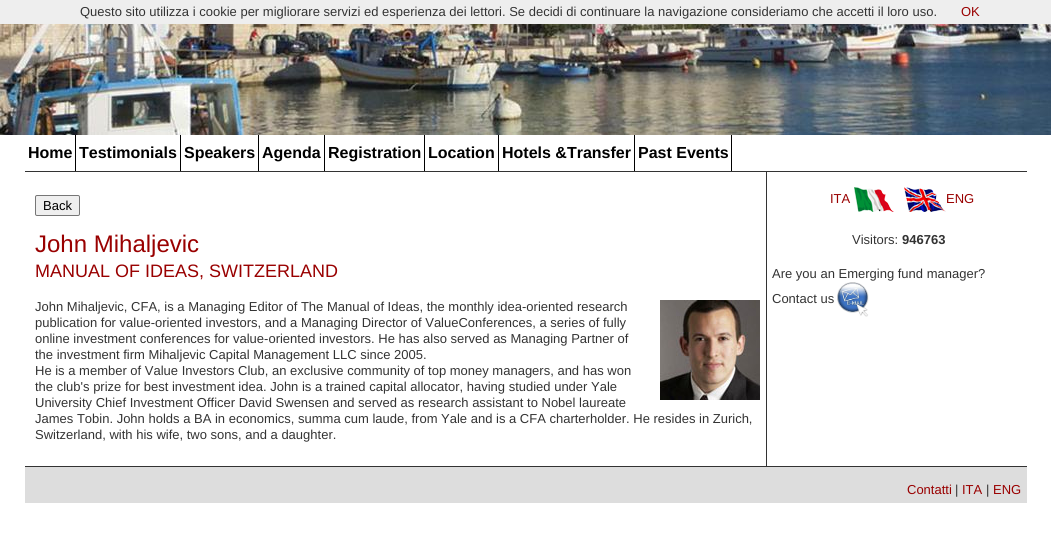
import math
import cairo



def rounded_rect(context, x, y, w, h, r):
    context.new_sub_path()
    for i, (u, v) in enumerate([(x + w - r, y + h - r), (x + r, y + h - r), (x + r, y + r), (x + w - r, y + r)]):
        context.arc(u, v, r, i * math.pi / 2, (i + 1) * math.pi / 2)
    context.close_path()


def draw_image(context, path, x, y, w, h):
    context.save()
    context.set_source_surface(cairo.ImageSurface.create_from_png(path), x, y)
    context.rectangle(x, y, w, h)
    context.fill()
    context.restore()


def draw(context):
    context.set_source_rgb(1, 1, 1)
    context.paint()
    context.set_source_rgb(238 / 255, 238 / 255, 238 / 255)
    context.rectangle(0, 0, 1051, 24)
    context.fill()
    draw_image(context, "images/1.png", 0, 24, 1051, 111)
    context.set_source_rgb(51 / 255, 51 / 255, 51 / 255)
    context.rectangle(25, 171, 1002, 1)
    context.fill()
    context.set_source_rgb(0, 0, 0)
    context.rectangle(75, 135, 1, 36)
    context.fill()
    context.rectangle(180, 135, 1, 36)
    context.fill()
    context.rectangle(258, 135, 1, 36)
    context.fill()
    context.rectangle(324, 135, 1, 36)
    context.fill()
    context.rectangle(424, 135, 1, 36)
    context.fill()
    context.rectangle(498, 135, 1, 36)
    context.fill()
    context.rectangle(634, 135, 1, 36)
    context.fill()
    context.rectangle(731, 135, 1, 36)
    context.fill()
    context.set_source_rgb(239 / 255, 239 / 255, 239 / 255)
    rounded_rect(context, 35.5, 195.5, 44, 20, 1.5)
    context.fill_preserve()
    context.set_source_rgb(118 / 255, 118 / 255, 118 / 255)
    context.set_line_width(1)
    context.stroke()
    draw_image(context, "images/2.png", 660, 300, 100, 100)
    context.set_source_rgb(51 / 255, 51 / 255, 51 / 255)
    context.rectangle(766, 172, 1, 294)
    context.fill()
    draw_image(context, "images/3.png", 854, 187, 40, 25)
    draw_image(context, "images/4.png", 904, 187, 42, 25)
    draw_image(context, "images/5.png", 837, 282, 32, 35)
    context.set_source_rgb(221 / 255, 221 / 255, 221 / 255)
    context.rectangle(25, 467, 1002, 36)
    context.fill()
    context.set_source_rgb(51 / 255, 51 / 255, 51 / 255)
    context.rectangle(25, 466, 1002, 1)
    context.fill()
    context.select_font_face("Liberation Sans")
    context.set_font_size(13)
    context.move_to(80, 16)
    context.show_text("Questo sito utilizza i cookie per migliorare servizi ed esperienza dei lettori. Se decidi di continuare la navigazione consideriamo che accetti il loro uso.")
    context.set_source_rgb(153 / 255, 0, 0)
    context.move_to(961, 16)
    context.show_text("OK")
    context.select_font_face("Liberation Sans", cairo.FontSlant.NORMAL, cairo.FontWeight.BOLD)
    context.set_font_size(16)
    context.set_source_rgb(0, 0, 0)
    context.move_to(28, 158)
    context.show_text("Home")
    context.move_to(79, 158)
    context.show_text("Testimonials")
    context.move_to(184, 158)
    context.show_text("Speakers")
    context.move_to(262, 158)
    context.show_text("Agenda")
    context.move_to(328, 158)
    context.show_text("Registration")
    context.move_to(428, 158)
    context.show_text("Location")
    context.move_to(502, 158)
    context.show_text("Hotels &Transfer")
    context.move_to(638, 158)
    context.show_text("Past Events")
    context.select_font_face("Liberation Sans")
    context.set_font_size(13)
    context.move_to(43, 210)
    context.show_text("Back")
    context.set_font_size(24)
    context.set_source_rgb(153 / 255, 0, 0)
    context.move_to(35, 252)
    context.show_text("John Mihaljevic")
    context.set_font_size(18)
    context.move_to(35, 277)
    context.show_text("MANUAL OF IDEAS, SWITZERLAND")
    context.set_font_size(13)
    context.set_source_rgb(51 / 255, 51 / 255, 51 / 255)
    context.move_to(35, 311)
    context.show_text("John Mihaljevic, CFA, is a Managing Editor of The Manual of Ideas, the monthly idea-oriented research")
    context.move_to(35, 327)
    context.show_text("publication for value-oriented investors, and a Managing Director of ValueConferences, a series of fully")
    context.move_to(35, 343)
    context.show_text("online investment conferences for value-oriented investors. He has also served as Managing Partner of")
    context.move_to(35, 359)
    context.show_text("the investment firm Mihaljevic Capital Management LLC since 2005.")
    context.move_to(35, 375)
    context.show_text("He is a member of Value Investors Club, an exclusive community of top money managers, and has won")
    context.move_to(35, 391)
    context.show_text("the club's prize for best investment idea. John is a trained capital allocator, having studied under Yale")
    context.move_to(35, 407)
    context.show_text("University Chief Investment Officer David Swensen and served as research assistant to Nobel laureate")
    context.move_to(35, 423)
    context.show_text("James Tobin. John holds a BA in economics, summa cum laude, from Yale and is a CFA charterholder. He resides in Zurich,")
    context.move_to(35, 439)
    context.show_text("Switzerland, with his wife, two sons, and a daughter.")
    context.set_source_rgb(153 / 255, 0, 0)
    context.move_to(830, 203)
    context.show_text("ITA")
    context.move_to(946, 203)
    context.show_text("ENG")
    context.set_source_rgb(51 / 255, 51 / 255, 51 / 255)
    context.move_to(852, 244)
    context.show_text("Visitors:")
    context.select_font_face("Liberation Sans", cairo.FontSlant.NORMAL, cairo.FontWeight.BOLD)
    context.move_to(902, 244)
    context.show_text("946763")
    context.select_font_face("Liberation Sans")
    context.move_to(772, 278)
    context.show_text("Are you an Emerging fund manager?")
    context.move_to(772, 303)
    context.show_text("Contact us")
    context.set_source_rgb(153 / 255, 0, 0)
    context.move_to(907, 494)
    context.show_text("Contatti")
    context.set_source_rgb(51 / 255, 51 / 255, 51 / 255)
    context.move_to(955, 494)
    context.show_text("|")
    context.set_source_rgb(153 / 255, 0, 0)
    context.move_to(962, 494)
    context.show_text("ITA")
    context.set_source_rgb(51 / 255, 51 / 255, 51 / 255)
    context.move_to(986, 494)
    context.show_text("|")
    context.set_source_rgb(153 / 255, 0, 0)
    context.move_to(993, 494)
    context.show_text("ENG")


surface = cairo.ImageSurface(cairo.Format.RGB24, 1051, 546)
context = cairo.Context(surface)
options = cairo.FontOptions()
options.set_hint_metrics(cairo.HintMetrics.OFF)
options.set_hint_style(cairo.HintStyle.NONE)
context.set_font_options(options)
context.set_miter_limit(4)
draw(context)
surface.write_to_png("out.png")
